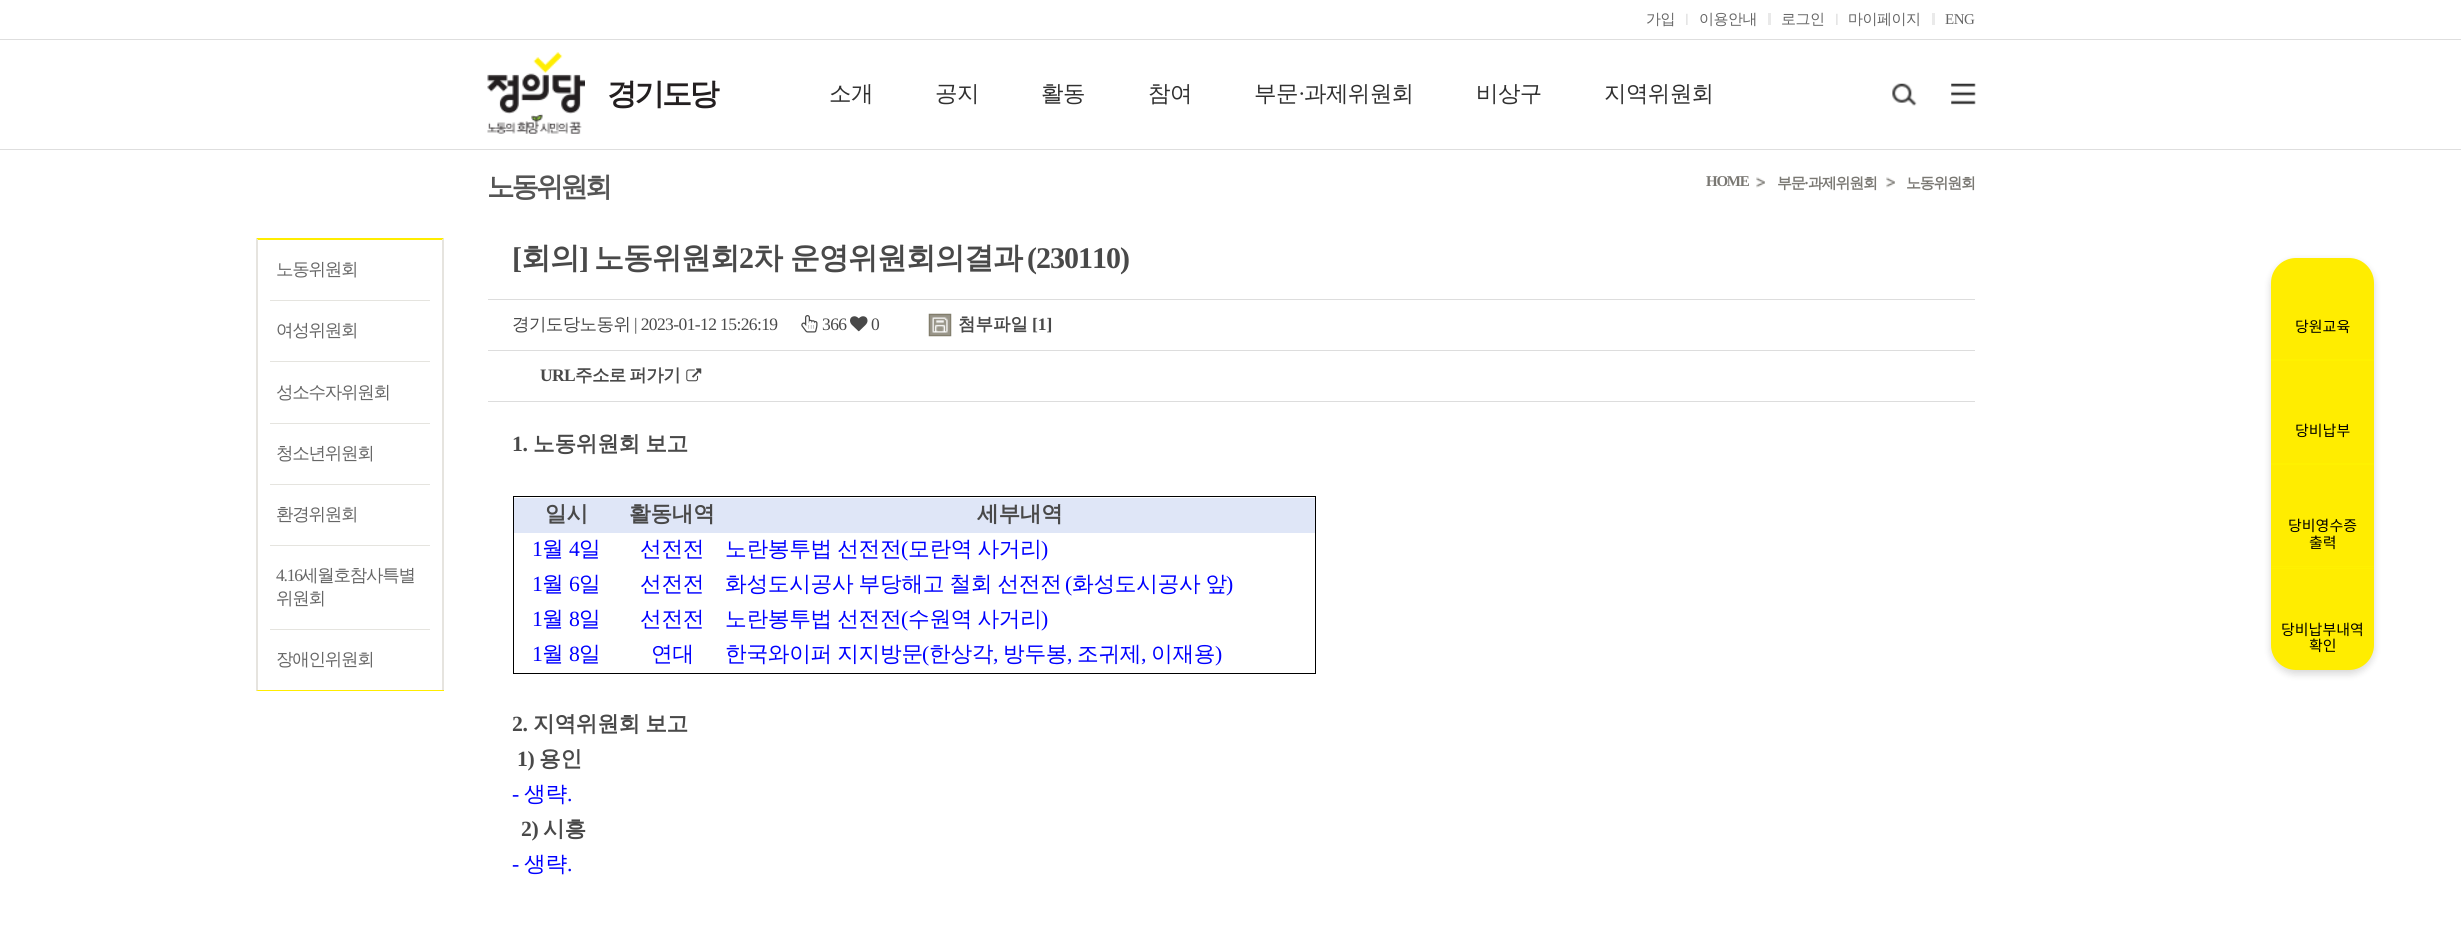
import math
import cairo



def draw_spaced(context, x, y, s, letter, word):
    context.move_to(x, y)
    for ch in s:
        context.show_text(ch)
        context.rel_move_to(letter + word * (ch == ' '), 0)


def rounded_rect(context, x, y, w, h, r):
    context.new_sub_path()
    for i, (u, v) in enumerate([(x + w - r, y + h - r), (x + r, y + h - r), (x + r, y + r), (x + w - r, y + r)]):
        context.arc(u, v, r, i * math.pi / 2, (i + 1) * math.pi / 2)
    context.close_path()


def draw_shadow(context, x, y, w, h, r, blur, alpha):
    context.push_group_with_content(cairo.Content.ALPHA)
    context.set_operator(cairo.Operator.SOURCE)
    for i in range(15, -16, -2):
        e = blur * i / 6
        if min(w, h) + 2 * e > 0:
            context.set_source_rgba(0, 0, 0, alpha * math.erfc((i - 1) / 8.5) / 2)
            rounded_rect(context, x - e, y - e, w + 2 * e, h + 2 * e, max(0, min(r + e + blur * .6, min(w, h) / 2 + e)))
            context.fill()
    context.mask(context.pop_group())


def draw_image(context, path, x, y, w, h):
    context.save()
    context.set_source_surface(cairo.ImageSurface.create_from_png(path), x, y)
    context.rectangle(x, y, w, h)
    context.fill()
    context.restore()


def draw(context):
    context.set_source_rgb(1, 1, 1)
    context.paint()
    context.set_source_rgb(222 / 255, 222 / 255, 222 / 255)
    context.rectangle(0, 39, 2461, 1)
    context.fill()
    draw_image(context, "images/1.png", 1686, 13, 2, 12)
    context.set_source_rgb(233 / 255, 233 / 255, 233 / 255)
    context.rectangle(1768, 13, 3, 12)
    context.fill()
    draw_image(context, "images/1.png", 1836, 13, 2, 12)
    context.set_source_rgb(234 / 255, 234 / 255, 234 / 255)
    context.rectangle(1932, 13, 3, 12)
    context.fill()
    context.set_source_rgb(222 / 255, 222 / 255, 222 / 255)
    context.rectangle(0, 149, 2461, 1)
    context.fill()
    draw_image(context, "images/2.png", 487, 52, 98, 82)
    draw_image(context, "images/3.png", 1892, 83, 25, 23)
    draw_image(context, "images/4.png", 1951, 83, 25, 22)
    draw_image(context, "images/5.png", 1756, 177, 9, 11)
    draw_image(context, "images/5.png", 1886, 177, 9, 11)
    context.set_source_rgb(221 / 255, 221 / 255, 221 / 255)
    context.rectangle(488, 299, 1487, 1)
    context.fill()
    context.rectangle(488, 350, 1487, 1)
    context.fill()
    draw_image(context, "images/6.png", 801, 315, 17, 18)
    draw_image(context, "images/7.png", 850, 316, 18, 16)
    draw_image(context, "images/8.png", 928, 313, 24, 24)
    context.rectangle(488, 401, 1487, 1)
    context.fill()
    draw_image(context, "images/9.png", 686, 368, 16, 14)
    context.set_source_rgb(0, 0, 0)
    context.rectangle(513, 496, 803, 1)
    context.fill()
    context.rectangle(1315, 496, 1, 178)
    context.fill()
    context.rectangle(513, 673, 803, 1)
    context.fill()
    context.rectangle(513, 496, 1, 178)
    context.fill()
    context.set_source_rgb(223 / 255, 230 / 255, 247 / 255)
    context.rectangle(514, 498, 801, 35)
    context.fill()
    context.set_source_rgb(1, 237 / 255, 0)
    context.new_path()
    context.move_to(256, 238)
    context.line_to(444, 238)
    context.line_to(442, 240)
    context.line_to(258, 240)
    context.close_path()
    context.fill()
    context.set_source_rgb(230 / 255, 228 / 255, 223 / 255)
    context.new_path()
    context.move_to(444, 238)
    context.line_to(444, 691)
    context.line_to(442, 690)
    context.line_to(442, 240)
    context.close_path()
    context.fill()
    context.set_source_rgb(1, 237 / 255, 0)
    context.rectangle(256, 690, 188, 1)
    context.fill()
    context.set_source_rgb(230 / 255, 228 / 255, 223 / 255)
    context.new_path()
    context.move_to(256, 691)
    context.line_to(256, 238)
    context.line_to(258, 240)
    context.line_to(258, 690)
    context.close_path()
    context.fill()
    context.set_source_rgb(229 / 255, 228 / 255, 223 / 255)
    context.rectangle(270, 300, 160, 1)
    context.fill()
    context.rectangle(270, 361, 160, 1)
    context.fill()
    context.rectangle(270, 423, 160, 1)
    context.fill()
    context.rectangle(270, 484, 160, 1)
    context.fill()
    context.rectangle(270, 545, 160, 1)
    context.fill()
    context.rectangle(270, 629, 160, 1)
    context.fill()
    context.set_source_rgb(0, 0, 0)
    draw_shadow(context, 2271, 261, 103, 413, 25, 4, 0.16)
    context.set_source_rgb(1, 237 / 255, 0)
    rounded_rect(context, 2271, 258, 103, 412, 25)
    context.fill()
    context.set_source_rgb(1, 241 / 255, 0)
    context.rectangle(2271, 359, 103, 2)
    context.fill()
    context.rectangle(2271, 463, 103, 2)
    context.fill()
    context.rectangle(2271, 566, 103, 1)
    context.fill()
    context.rectangle(2271, 568, 103, 1)
    context.fill()
    context.select_font_face("WenQuanYi Zen Hei Medium")
    context.set_font_size(15)
    context.set_source_rgb(102 / 255, 102 / 255, 102 / 255)
    draw_spaced(context, 1646, 24, "가입", -0.5, 0)
    draw_spaced(context, 1699, 24, "이용안내", -0.5, 0)
    draw_spaced(context, 1781, 24, "로그인", -0.5, 0)
    draw_spaced(context, 1848, 24, "마이페이지", -0.5, 0)
    context.select_font_face("Liberation Serif")
    draw_spaced(context, 1945, 24, "ENG", -0.5, 0)
    context.select_font_face("WenQuanYi Zen Hei", cairo.FontSlant.NORMAL, cairo.FontWeight.BOLD)
    context.set_font_size(30)
    context.set_source_rgb(35 / 255, 31 / 255, 32 / 255)
    draw_spaced(context, 607, 104, "경기도당", -2.5, 0)
    context.select_font_face("WenQuanYi Zen Hei Medium")
    context.set_font_size(22.5)
    context.set_source_rgb(48 / 255, 48 / 255, 48 / 255)
    draw_spaced(context, 829, 101, "소개", -0.6, 0)
    draw_spaced(context, 935, 101, "공지", -0.6, 0)
    draw_spaced(context, 1041, 101, "활동", -0.6, 0)
    draw_spaced(context, 1148, 101, "참여", -0.6, 0)
    draw_spaced(context, 1254, 101, "부문", -0.6, 0)
    context.select_font_face("Liberation Serif")
    draw_spaced(context, 1298, 101, "·", -0.6, 0)
    context.select_font_face("WenQuanYi Zen Hei Medium")
    draw_spaced(context, 1304, 101, "과제위원회", -0.6, 0)
    draw_spaced(context, 1476, 101, "비상구", -0.6, 0)
    draw_spaced(context, 1604, 101, "지역위원회", -0.6, 0)
    context.select_font_face("WenQuanYi Zen Hei", cairo.FontSlant.NORMAL, cairo.FontWeight.BOLD)
    context.set_font_size(27.5)
    context.set_source_rgb(85 / 255, 85 / 255, 85 / 255)
    draw_spaced(context, 487, 196, "노동위원회", -3, 0)
    context.select_font_face("Liberation Serif", cairo.FontSlant.NORMAL, cairo.FontWeight.BOLD)
    context.set_font_size(15)
    context.set_source_rgb(122 / 255, 120 / 255, 115 / 255)
    draw_spaced(context, 1706, 186, "HOME", -1.25, 0)
    context.select_font_face("WenQuanYi Zen Hei", cairo.FontSlant.NORMAL, cairo.FontWeight.BOLD)
    draw_spaced(context, 1777, 188, "부문", -1.25, 0)
    context.select_font_face("Liberation Serif", cairo.FontSlant.NORMAL, cairo.FontWeight.BOLD)
    draw_spaced(context, 1804, 188, "·", -1.25, 0)
    context.select_font_face("WenQuanYi Zen Hei", cairo.FontSlant.NORMAL, cairo.FontWeight.BOLD)
    draw_spaced(context, 1808, 188, "과제위원회", -1.25, 0)
    draw_spaced(context, 1906, 188, "노동위원회", -1.25, 0)
    context.select_font_face("Liberation Serif", cairo.FontSlant.NORMAL, cairo.FontWeight.BOLD)
    context.set_font_size(30)
    context.set_source_rgb(73 / 255, 73 / 255, 73 / 255)
    draw_spaced(context, 512, 268, "[", -1, 0)
    context.select_font_face("WenQuanYi Zen Hei", cairo.FontSlant.NORMAL, cairo.FontWeight.BOLD)
    draw_spaced(context, 521, 268, "회의", -1, 0)
    context.select_font_face("Liberation Serif", cairo.FontSlant.NORMAL, cairo.FontWeight.BOLD)
    draw_spaced(context, 579, 268, "]", -1, 0)
    context.select_font_face("WenQuanYi Zen Hei", cairo.FontSlant.NORMAL, cairo.FontWeight.BOLD)
    draw_spaced(context, 594, 268, "노동위원회", -1, 0)
    context.select_font_face("Liberation Serif", cairo.FontSlant.NORMAL, cairo.FontWeight.BOLD)
    draw_spaced(context, 739, 268, "2", -1, 0)
    context.select_font_face("WenQuanYi Zen Hei", cairo.FontSlant.NORMAL, cairo.FontWeight.BOLD)
    draw_spaced(context, 753, 268, "차 운영위원회의결과", -1, 0)
    context.select_font_face("Liberation Serif", cairo.FontSlant.NORMAL, cairo.FontWeight.BOLD)
    draw_spaced(context, 1027, 268, "(230110)", -1, 0)
    context.select_font_face("WenQuanYi Zen Hei Medium")
    context.set_font_size(17.5)
    draw_spaced(context, 512, 330, "경기도당노동위", -0.6, 0)
    context.select_font_face("Liberation Serif")
    draw_spaced(context, 634, 330, "| 2023-01-12 15:26:19", -0.6, 0)
    draw_spaced(context, 822, 330, "366", -0.6, 0)
    draw_spaced(context, 871, 330, "0", -0.6, 0)
    context.select_font_face("WenQuanYi Zen Hei", cairo.FontSlant.NORMAL, cairo.FontWeight.BOLD)
    context.move_to(958, 330)
    context.show_text("첨부파일")
    context.select_font_face("Liberation Serif", cairo.FontSlant.NORMAL, cairo.FontWeight.BOLD)
    context.move_to(1032, 330)
    context.show_text("[1]")
    draw_spaced(context, 540, 381, "URL", -0.6, 0)
    context.select_font_face("WenQuanYi Zen Hei", cairo.FontSlant.NORMAL, cairo.FontWeight.BOLD)
    draw_spaced(context, 575, 381, "주소로 퍼가기", -0.6, -1)
    context.select_font_face("Liberation Serif", cairo.FontSlant.NORMAL, cairo.FontWeight.BOLD)
    context.set_font_size(21.7)
    draw_spaced(context, 512, 451, "1.", -0.3, 0)
    context.select_font_face("WenQuanYi Zen Hei", cairo.FontSlant.NORMAL, cairo.FontWeight.BOLD)
    draw_spaced(context, 533, 451, "노동위원회 보고", -0.3, -1)
    draw_spaced(context, 545, 521, "일시", -0.3, 0)
    draw_spaced(context, 629, 521, "활동내역", -0.3, 0)
    draw_spaced(context, 977, 521, "세부내역", -0.3, 0)
    context.select_font_face("Liberation Serif")
    context.set_source_rgb(0, 0, 1)
    draw_spaced(context, 532, 556, "1", -0.3, 0)
    context.select_font_face("WenQuanYi Zen Hei Medium")
    draw_spaced(context, 542, 556, "월", -0.3, 0)
    context.select_font_face("Liberation Serif")
    draw_spaced(context, 569, 556, "4", -0.3, 0)
    context.select_font_face("WenQuanYi Zen Hei Medium")
    draw_spaced(context, 579, 556, "일", -0.3, 0)
    draw_spaced(context, 640, 556, "선전전", -0.3, 0)
    draw_spaced(context, 725, 556, "노란봉투법 선전전", -0.3, -1)
    context.select_font_face("Liberation Serif")
    draw_spaced(context, 901, 556, "(", -0.3, 0)
    context.select_font_face("WenQuanYi Zen Hei Medium")
    draw_spaced(context, 908, 556, "모란역 사거리", -0.3, -1)
    context.select_font_face("Liberation Serif")
    draw_spaced(context, 1041, 556, ")", -0.3, 0)
    draw_spaced(context, 532, 591, "1", -0.3, 0)
    context.select_font_face("WenQuanYi Zen Hei Medium")
    draw_spaced(context, 542, 591, "월", -0.3, 0)
    context.select_font_face("Liberation Serif")
    draw_spaced(context, 569, 591, "6", -0.3, 0)
    context.select_font_face("WenQuanYi Zen Hei Medium")
    draw_spaced(context, 579, 591, "일", -0.3, 0)
    draw_spaced(context, 640, 591, "선전전", -0.3, 0)
    draw_spaced(context, 725, 591, "화성도시공사 부당해고 철회 선전전", -0.3, -1)
    context.select_font_face("Liberation Serif")
    draw_spaced(context, 1065, 591, "(", -0.3, 0)
    context.select_font_face("WenQuanYi Zen Hei Medium")
    draw_spaced(context, 1072, 591, "화성도시공사 앞", -0.3, -1)
    context.select_font_face("Liberation Serif")
    draw_spaced(context, 1226, 591, ")", -0.3, 0)
    draw_spaced(context, 532, 626, "1", -0.3, 0)
    context.select_font_face("WenQuanYi Zen Hei Medium")
    draw_spaced(context, 542, 626, "월", -0.3, 0)
    context.select_font_face("Liberation Serif")
    draw_spaced(context, 569, 626, "8", -0.3, 0)
    context.select_font_face("WenQuanYi Zen Hei Medium")
    draw_spaced(context, 579, 626, "일", -0.3, 0)
    draw_spaced(context, 640, 626, "선전전", -0.3, 0)
    draw_spaced(context, 725, 626, "노란봉투법 선전전", -0.3, -1)
    context.select_font_face("Liberation Serif")
    draw_spaced(context, 901, 626, "(", -0.3, 0)
    context.select_font_face("WenQuanYi Zen Hei Medium")
    draw_spaced(context, 908, 626, "수원역 사거리", -0.3, -1)
    context.select_font_face("Liberation Serif")
    draw_spaced(context, 1041, 626, ")", -0.3, 0)
    draw_spaced(context, 532, 661, "1", -0.3, 0)
    context.select_font_face("WenQuanYi Zen Hei Medium")
    draw_spaced(context, 542, 661, "월", -0.3, 0)
    context.select_font_face("Liberation Serif")
    draw_spaced(context, 569, 661, "8", -0.3, 0)
    context.select_font_face("WenQuanYi Zen Hei Medium")
    draw_spaced(context, 579, 661, "일", -0.3, 0)
    draw_spaced(context, 651, 661, "연대", -0.3, 0)
    draw_spaced(context, 725, 661, "한국와이퍼 지지방문", -0.3, -1)
    context.select_font_face("Liberation Serif")
    draw_spaced(context, 922, 661, "(", -0.3, 0)
    context.select_font_face("WenQuanYi Zen Hei Medium")
    draw_spaced(context, 929, 661, "한상각", -0.3, 0)
    context.select_font_face("Liberation Serif")
    draw_spaced(context, 993, 661, ",", -0.3, 0)
    context.select_font_face("WenQuanYi Zen Hei Medium")
    draw_spaced(context, 1003, 661, "방두봉", -0.3, 0)
    context.select_font_face("Liberation Serif")
    draw_spaced(context, 1067, 661, ",", -0.3, 0)
    context.select_font_face("WenQuanYi Zen Hei Medium")
    draw_spaced(context, 1077, 661, "조귀제", -0.3, 0)
    context.select_font_face("Liberation Serif")
    draw_spaced(context, 1141, 661, ",", -0.3, 0)
    context.select_font_face("WenQuanYi Zen Hei Medium")
    draw_spaced(context, 1151, 661, "이재용", -0.3, 0)
    context.select_font_face("Liberation Serif")
    draw_spaced(context, 1215, 661, ")", -0.3, 0)
    context.select_font_face("Liberation Serif", cairo.FontSlant.NORMAL, cairo.FontWeight.BOLD)
    context.set_source_rgb(73 / 255, 73 / 255, 73 / 255)
    draw_spaced(context, 512, 731, "2.", -0.3, 0)
    context.select_font_face("WenQuanYi Zen Hei", cairo.FontSlant.NORMAL, cairo.FontWeight.BOLD)
    draw_spaced(context, 533, 731, "지역위원회 보고", -0.3, -1)
    context.select_font_face("Liberation Serif", cairo.FontSlant.NORMAL, cairo.FontWeight.BOLD)
    draw_spaced(context, 517, 766, "1)", -0.3, 0)
    context.select_font_face("WenQuanYi Zen Hei", cairo.FontSlant.NORMAL, cairo.FontWeight.BOLD)
    draw_spaced(context, 539, 766, "용인", -0.3, 0)
    context.select_font_face("Liberation Serif")
    context.set_source_rgb(0, 0, 1)
    draw_spaced(context, 512, 801, "-", -0.3, 0)
    context.select_font_face("WenQuanYi Zen Hei Medium")
    draw_spaced(context, 524, 801, "생략", -0.3, 0)
    context.select_font_face("Liberation Serif")
    draw_spaced(context, 567, 801, ".", -0.3, 0)
    context.select_font_face("Liberation Serif", cairo.FontSlant.NORMAL, cairo.FontWeight.BOLD)
    context.set_source_rgb(73 / 255, 73 / 255, 73 / 255)
    draw_spaced(context, 521, 836, "2)", -0.3, 0)
    context.select_font_face("WenQuanYi Zen Hei", cairo.FontSlant.NORMAL, cairo.FontWeight.BOLD)
    draw_spaced(context, 543, 836, "시흥", -0.3, 0)
    context.select_font_face("Liberation Serif")
    context.set_source_rgb(0, 0, 1)
    draw_spaced(context, 512, 871, "-", -0.3, 0)
    context.select_font_face("WenQuanYi Zen Hei Medium")
    draw_spaced(context, 524, 871, "생략", -0.3, 0)
    context.select_font_face("Liberation Serif")
    draw_spaced(context, 567, 871, ".", -0.3, 0)
    context.select_font_face("WenQuanYi Zen Hei Medium")
    context.set_font_size(17.5)
    context.set_source_rgb(102 / 255, 102 / 255, 102 / 255)
    draw_spaced(context, 276, 275, "노동위원회", -1.25, 0)
    draw_spaced(context, 276, 336, "여성위원회", -1.25, 0)
    draw_spaced(context, 276, 398, "성소수자위원회", -1.25, 0)
    draw_spaced(context, 276, 459, "청소년위원회", -1.25, 0)
    draw_spaced(context, 276, 520, "환경위원회", -1.25, 0)
    context.select_font_face("Liberation Serif")
    draw_spaced(context, 276, 581, "4.16", -1.25, 0)
    context.select_font_face("WenQuanYi Zen Hei Medium")
    draw_spaced(context, 301, 581, "세월호참사특별", -1.25, 0)
    draw_spaced(context, 276, 604, "위원회", -1.25, 0)
    draw_spaced(context, 276, 665, "장애인위원회", -1.25, 0)
    context.select_font_face("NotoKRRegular")
    context.set_font_size(15)
    context.set_source_rgb(0, 0, 0)
    context.move_to(2295, 332)
    context.show_text("당원교육")
    context.move_to(2295, 436)
    context.show_text("당비납부")
    context.move_to(2288, 531)
    context.show_text("당비영수증")
    context.move_to(2309, 548)
    context.show_text("출력")
    context.move_to(2281, 635)
    context.show_text("당비납부내역")
    context.move_to(2309, 651)
    context.show_text("확인")


surface = cairo.ImageSurface(cairo.Format.RGB24, 2461, 927)
context = cairo.Context(surface)
options = cairo.FontOptions()
options.set_hint_metrics(cairo.HintMetrics.OFF)
options.set_hint_style(cairo.HintStyle.NONE)
context.set_font_options(options)
context.set_miter_limit(4)
draw(context)
surface.write_to_png("out.png")
